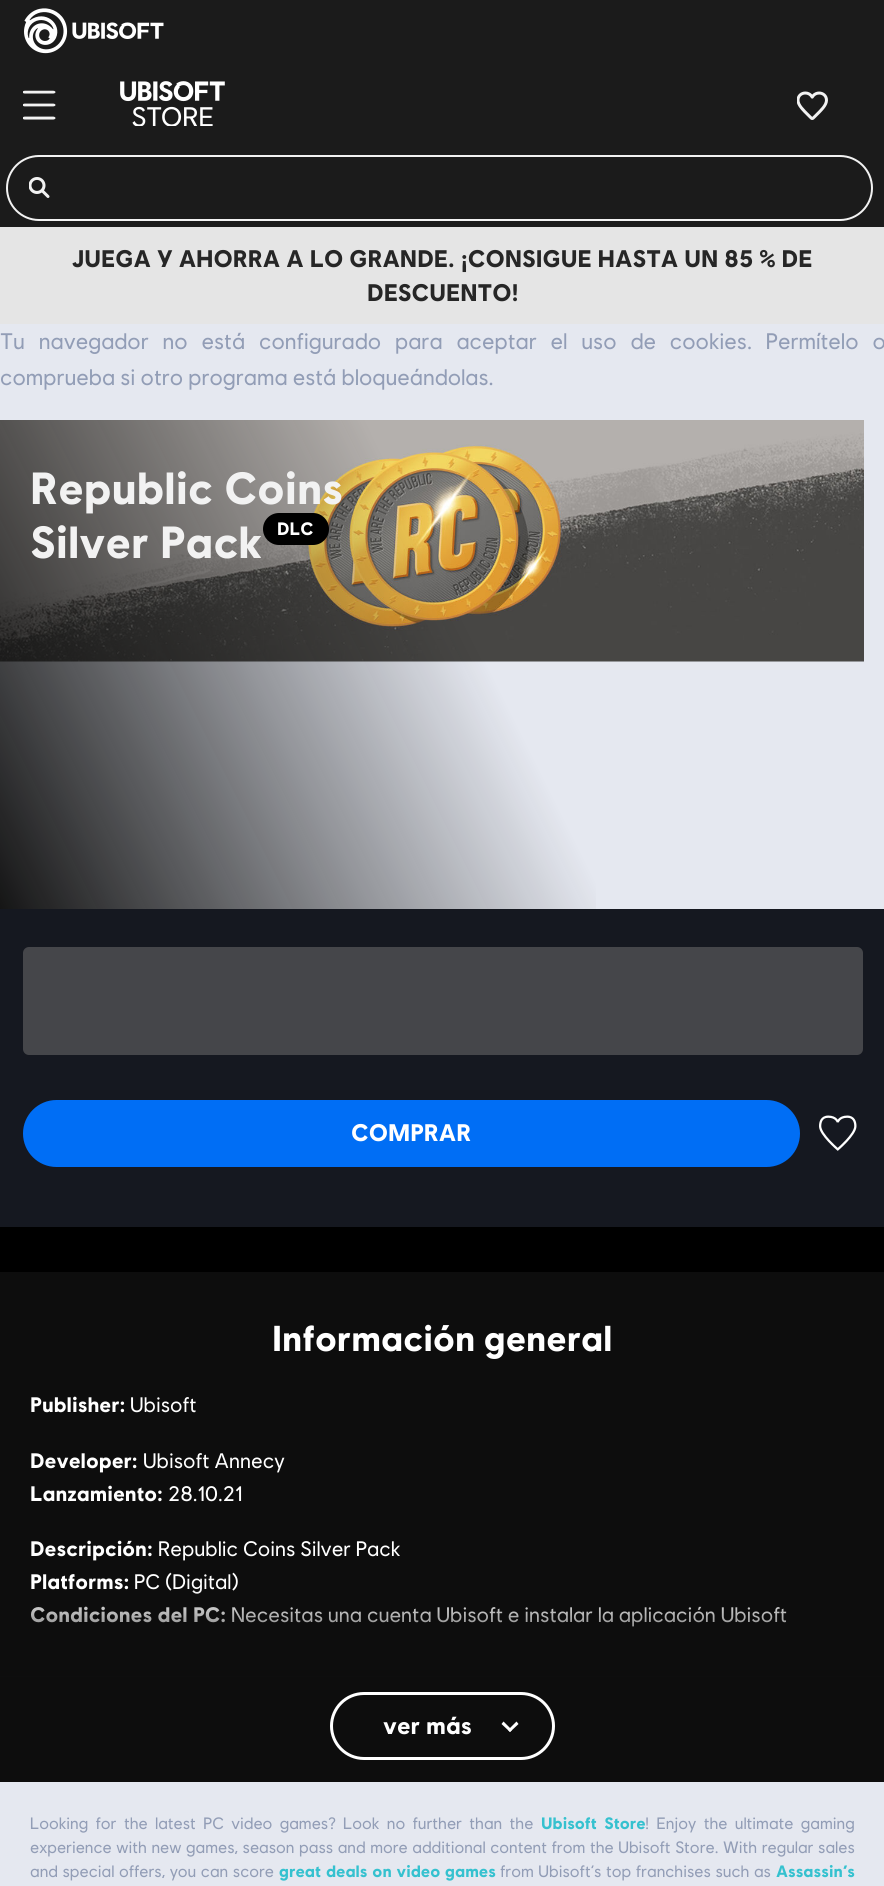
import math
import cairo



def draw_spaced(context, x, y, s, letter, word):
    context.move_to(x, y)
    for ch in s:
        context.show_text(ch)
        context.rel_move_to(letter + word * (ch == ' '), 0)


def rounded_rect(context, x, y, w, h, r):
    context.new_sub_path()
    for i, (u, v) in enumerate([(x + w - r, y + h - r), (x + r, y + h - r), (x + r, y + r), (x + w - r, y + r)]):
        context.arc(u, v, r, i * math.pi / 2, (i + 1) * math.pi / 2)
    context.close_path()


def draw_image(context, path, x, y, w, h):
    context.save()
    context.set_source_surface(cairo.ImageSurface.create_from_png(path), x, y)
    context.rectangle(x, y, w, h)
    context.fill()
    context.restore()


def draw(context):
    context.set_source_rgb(229 / 255, 232 / 255, 240 / 255)
    context.paint()
    context.set_source_rgb(27 / 255, 27 / 255, 27 / 255)
    context.rectangle(0, 0, 884, 227)
    context.fill()
    draw_image(context, "images/1.png", 24, 8, 140, 46)
    draw_image(context, "images/2.png", 23, 90, 33, 30)
    draw_image(context, "images/3.png", 120, 81, 105, 45)
    draw_image(context, "images/4.png", 797, 91, 31, 29)
    rounded_rect(context, 7, 156, 865, 64, 32)
    context.set_source_rgb(242 / 255, 242 / 255, 242 / 255)
    context.stroke()
    draw_image(context, "images/5.png", 29, 177, 21, 21)
    context.set_source_rgb(229 / 255, 229 / 255, 229 / 255)
    context.rectangle(0, 227, 884, 97)
    context.fill()
    draw_image(context, "images/6.png", 0, 420, 864, 242)
    gradient = cairo.LinearGradient(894, 439, -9, 890)
    gradient.add_color_stop_rgba(0.46, 13 / 255, 13 / 255, 13 / 255, 0)
    gradient.add_color_stop_rgba(1, 13 / 255, 13 / 255, 13 / 255, 0.96)
    context.set_source(gradient)
    context.rectangle(0, 420, 596, 489)
    context.fill()
    context.set_source_rgb(21 / 255, 24 / 255, 32 / 255)
    context.rectangle(0, 909, 884, 318)
    context.fill()
    context.set_source_rgb(69 / 255, 70 / 255, 74 / 255)
    rounded_rect(context, 23, 947, 840, 108, 6)
    context.fill()
    context.set_source_rgb(0, 110 / 255, 245 / 255)
    rounded_rect(context, 24.5, 1101.5, 774, 64, 32)
    context.fill_preserve()
    context.set_line_width(3)
    context.stroke()
    draw_image(context, "images/7.png", 819, 1115, 38, 36)
    context.set_source_rgb(0, 0, 0)
    context.rectangle(0, 1227, 884, 45)
    context.fill()
    context.set_source_rgb(13 / 255, 13 / 255, 13 / 255)
    context.rectangle(0, 1272, 884, 404)
    context.fill()
    context.select_font_face("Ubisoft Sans", cairo.FontSlant.NORMAL, cairo.FontWeight.BOLD)
    context.set_font_size(24)
    context.set_source_rgb(38 / 255, 38 / 255, 38 / 255)
    context.move_to(72, 267)
    context.show_text("JUEGA Y AHORRA A LO GRANDE. ¡CONSIGUE HASTA UN 85 % DE")
    context.move_to(367, 301)
    context.show_text("DESCUENTO!")
    context.select_font_face("Ubisoft Sans")
    context.set_font_size(22.5)
    context.set_source_rgb(146 / 255, 157 / 255, 182 / 255)
    draw_spaced(context, 0, 349, "Tu navegador no está configurado para aceptar el uso de cookies. Permítelo o", 0, 8.75)
    context.move_to(0, 385)
    context.show_text("comprueba si otro programa está bloqueándolas.")
    context.select_font_face("Ubisoft Sans", cairo.FontSlant.NORMAL, cairo.FontWeight.BOLD)
    context.set_font_size(45)
    context.set_source_rgb(242 / 255, 242 / 255, 242 / 255)
    context.move_to(30, 504)
    context.show_text("Republic Coins")
    context.move_to(30, 558)
    context.show_text("Silver Pack")
    context.set_source_rgb(0, 0, 0)
    rounded_rect(context, 263, 513, 66, 32, 16)
    context.fill()
    context.set_font_size(18)
    context.set_source_rgb(1, 1, 1)
    context.move_to(277, 535)
    context.show_text("DLC")
    context.set_font_size(24)
    context.move_to(351, 1141)
    context.show_text("COMPRAR")
    context.set_font_size(36)
    context.move_to(272, 1351)
    context.show_text("Información general")
    context.set_font_size(21)
    context.move_to(30, 1412)
    context.show_text("Publisher:")
    context.select_font_face("Ubisoft Sans")
    context.move_to(130, 1412)
    context.show_text("Ubisoft")
    context.select_font_face("Ubisoft Sans", cairo.FontSlant.NORMAL, cairo.FontWeight.BOLD)
    context.move_to(30, 1468)
    context.show_text("Developer:")
    context.select_font_face("Ubisoft Sans")
    context.move_to(143, 1468)
    context.show_text("Ubisoft Annecy")
    context.select_font_face("Ubisoft Sans", cairo.FontSlant.NORMAL, cairo.FontWeight.BOLD)
    context.move_to(30, 1501)
    context.show_text("Lanzamiento:")
    context.select_font_face("Ubisoft Sans")
    context.move_to(168, 1501)
    context.show_text("28.10.21")
    context.select_font_face("Ubisoft Sans", cairo.FontSlant.NORMAL, cairo.FontWeight.BOLD)
    context.move_to(30, 1556)
    context.show_text("Descripción:")
    context.select_font_face("Ubisoft Sans")
    context.move_to(158, 1556)
    context.show_text("Republic Coins Silver Pack")
    context.select_font_face("Ubisoft Sans", cairo.FontSlant.NORMAL, cairo.FontWeight.BOLD)
    context.move_to(30, 1589)
    context.show_text("Platforms:")
    context.select_font_face("Ubisoft Sans")
    context.move_to(134, 1589)
    context.show_text("PC (Digital)")
    context.select_font_face("Ubisoft Sans", cairo.FontSlant.NORMAL, cairo.FontWeight.BOLD)
    context.move_to(30, 1622)
    context.show_text("Condiciones del PC:")
    context.select_font_face("Ubisoft Sans")
    context.move_to(231, 1622)
    context.show_text("Necesitas una cuenta Ubisoft e instalar la aplicación Ubisoft")
    gradient = cairo.LinearGradient(443, 1782, 443, 1587)
    gradient.add_color_stop_rgba(0.54, 13 / 255, 13 / 255, 13 / 255, 1)
    gradient.add_color_stop_rgba(1, 13 / 255, 13 / 255, 13 / 255, 0)
    context.set_source(gradient)
    context.rectangle(0, 1589, 884, 193)
    context.fill()
    rounded_rect(context, 331.5, 1693.5, 222, 65, 32.5)
    context.set_source_rgb(1, 1, 1)
    context.stroke()
    context.select_font_face("Ubisoft Sans", cairo.FontSlant.NORMAL, cairo.FontWeight.BOLD)
    context.set_font_size(24)
    context.move_to(383, 1734)
    context.show_text("ver más")
    context.new_path()
    context.move_to(518.5, 1724)
    context.line_to(510, 1732)
    context.line_to(508, 1730)
    context.line_to(516.5, 1721.5)
    context.close_path()
    context.fill()
    context.new_path()
    context.move_to(512, 1730)
    context.line_to(510, 1732)
    context.line_to(501.5, 1724)
    context.line_to(503.5, 1721.5)
    context.close_path()
    context.fill()
    context.select_font_face("Ubisoft Sans")
    context.set_font_size(16.5)
    context.set_source_rgb(146 / 255, 157 / 255, 182 / 255)
    draw_spaced(context, 30, 1829, "Looking for the latest PC video games? Look no further than the", 0, 3.6)
    context.select_font_face("Ubisoft Sans", cairo.FontSlant.NORMAL, cairo.FontWeight.BOLD)
    context.set_source_rgb(53 / 255, 193 / 255, 207 / 255)
    draw_spaced(context, 541, 1829, "Ubisoft Store", 0, 3.6)
    context.select_font_face("Ubisoft Sans")
    context.set_source_rgb(146 / 255, 157 / 255, 182 / 255)
    draw_spaced(context, 645, 1829, "! Enjoy the ultimate gaming", 0, 3.6)
    draw_spaced(context, 30, 1853, "experience with new games, season pass and more additional content from the Ubisoft Store. With regular sales", 0, 0.8)
    draw_spaced(context, 30, 1877, "and special offers, you can score", 0, 0.8)
    context.select_font_face("Ubisoft Sans", cairo.FontSlant.NORMAL, cairo.FontWeight.BOLD)
    context.set_source_rgb(53 / 255, 193 / 255, 207 / 255)
    draw_spaced(context, 279, 1877, "great deals on video games", 0, 0.8)
    context.select_font_face("Ubisoft Sans")
    context.set_source_rgb(146 / 255, 157 / 255, 182 / 255)
    draw_spaced(context, 500, 1877, "from Ubisoft’s top franchises such as", 0, 0.8)
    context.select_font_face("Ubisoft Sans", cairo.FontSlant.NORMAL, cairo.FontWeight.BOLD)
    context.set_source_rgb(53 / 255, 193 / 255, 207 / 255)
    context.move_to(776, 1877)
    context.show_text("Assassin’s")


surface = cairo.ImageSurface(cairo.Format.RGB24, 884, 1886)
context = cairo.Context(surface)
options = cairo.FontOptions()
options.set_hint_metrics(cairo.HintMetrics.OFF)
options.set_hint_style(cairo.HintStyle.NONE)
context.set_font_options(options)
context.set_miter_limit(4)
draw(context)
surface.write_to_png("out.png")
